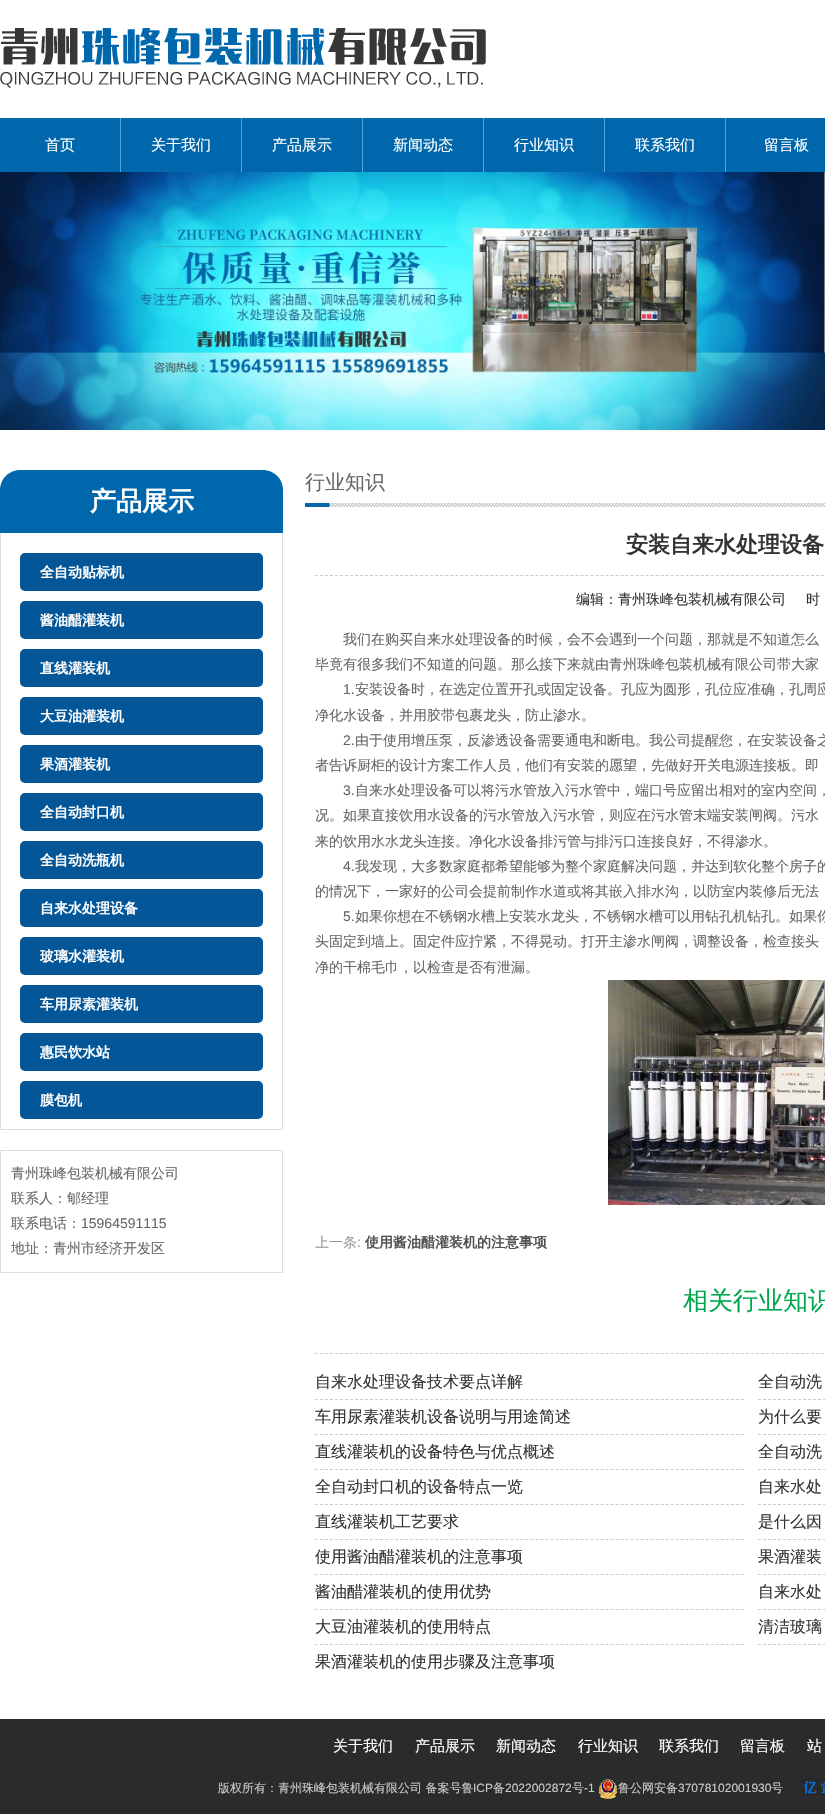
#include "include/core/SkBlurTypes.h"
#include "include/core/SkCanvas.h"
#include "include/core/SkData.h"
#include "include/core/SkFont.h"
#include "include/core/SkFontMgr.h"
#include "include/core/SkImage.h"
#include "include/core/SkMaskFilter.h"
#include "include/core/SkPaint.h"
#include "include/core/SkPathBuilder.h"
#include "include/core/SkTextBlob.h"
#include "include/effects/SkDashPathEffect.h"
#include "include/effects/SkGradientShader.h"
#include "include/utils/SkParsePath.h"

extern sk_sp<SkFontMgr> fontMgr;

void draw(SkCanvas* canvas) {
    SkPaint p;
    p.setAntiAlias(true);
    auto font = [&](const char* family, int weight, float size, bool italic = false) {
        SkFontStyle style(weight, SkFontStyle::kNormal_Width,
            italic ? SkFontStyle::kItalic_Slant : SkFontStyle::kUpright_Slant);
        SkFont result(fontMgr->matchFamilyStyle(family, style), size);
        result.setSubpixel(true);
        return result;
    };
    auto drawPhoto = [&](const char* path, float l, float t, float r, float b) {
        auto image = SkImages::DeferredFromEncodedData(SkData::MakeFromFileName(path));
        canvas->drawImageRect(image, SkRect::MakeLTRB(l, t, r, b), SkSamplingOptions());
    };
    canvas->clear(0xFFFFFFFF);
    drawPhoto("media/1.png", 0, 24, 486, 88);
    p.setColor(0xFF0067AC);
    canvas->drawRect(SkRect::MakeLTRB(0, 118, 825, 172), p);
    p.setColor(0xFF4DA6E1);
    canvas->drawRect(SkRect::MakeLTRB(120, 118, 121, 172), p);
    auto font1 = font("WenQuanYi Zen Hei", 500, 15);
    p.setColor(0xFFFFFFFF);
    canvas->drawString("首页", 45, 150, font1, p);
    p.setColor(0xFF4DA6E1);
    canvas->drawRect(SkRect::MakeLTRB(241, 118, 242, 172), p);
    p.setColor(0xFFFFFFFF);
    canvas->drawString("关于我们", 151, 150, font1, p);
    p.setColor(0xFF4DA6E1);
    canvas->drawRect(SkRect::MakeLTRB(362, 118, 363, 172), p);
    p.setColor(0xFFFFFFFF);
    canvas->drawString("产品展示", 272, 150, font1, p);
    p.setColor(0xFF4DA6E1);
    canvas->drawRect(SkRect::MakeLTRB(483, 118, 484, 172), p);
    p.setColor(0xFFFFFFFF);
    canvas->drawString("新闻动态", 393, 150, font1, p);
    p.setColor(0xFF4DA6E1);
    canvas->drawRect(SkRect::MakeLTRB(604, 118, 605, 172), p);
    p.setColor(0xFFFFFFFF);
    canvas->drawString("行业知识", 514, 150, font1, p);
    p.setColor(0xFF4DA6E1);
    canvas->drawRect(SkRect::MakeLTRB(725, 118, 726, 172), p);
    p.setColor(0xFFFFFFFF);
    canvas->drawString("联系我们", 635, 150, font1, p);
    canvas->drawString("留言板", 764, 150, font1, p);
    drawPhoto("media/2.png", 0, 172, 825, 430);
    p.setColor(0xFF0067AC);
    canvas->drawPath(SkPathBuilder().moveTo(20, 470).lineTo(263, 470).cubicTo(274, 470, 283, 479, 283, 490).lineTo(283, 533).lineTo(0, 533).lineTo(0, 490).cubicTo(0, 479, 9, 470, 20, 470).close().detach(), p);
    auto font2 = font("WenQuanYi Zen Hei", 700, 26);
    p.setColor(0xFFFFFFFF);
    canvas->drawString("产品展示", 90, 510, font2, p);
    {
        const struct { float l, t, r, b; SkColor color; } items[] = {
            {282, 533, 283, 1130, 0xFFDDDDDD},
            {0, 1129, 283, 1130, 0xFFDDDDDD},
            {0, 533, 1, 1130, 0xFFDDDDDD},
        };
        for (auto [l, t, r, b, color] : items) {
            p.setColor(color);
            canvas->drawRect(SkRect::MakeLTRB(l, t, r, b), p);
        }
    }
    p.setColor(0xFF035698);
    canvas->drawRoundRect(SkRect::MakeLTRB(20, 553, 263, 591), 5, 5, p);
    auto font3 = font("WenQuanYi Zen Hei", 700, 14);
    p.setColor(0xFFFFFFFF);
    canvas->drawString("全自动贴标机", 40, 577, font3, p);
    p.setColor(0xFF035698);
    canvas->drawRoundRect(SkRect::MakeLTRB(20, 601, 263, 639), 5, 5, p);
    p.setColor(0xFFFFFFFF);
    canvas->drawString("酱油醋灌装机", 40, 625, font3, p);
    p.setColor(0xFF035698);
    canvas->drawRoundRect(SkRect::MakeLTRB(20, 649, 263, 687), 5, 5, p);
    p.setColor(0xFFFFFFFF);
    canvas->drawString("直线灌装机", 40, 673, font3, p);
    p.setColor(0xFF035698);
    canvas->drawRoundRect(SkRect::MakeLTRB(20, 697, 263, 735), 5, 5, p);
    p.setColor(0xFFFFFFFF);
    canvas->drawString("大豆油灌装机", 40, 721, font3, p);
    p.setColor(0xFF035698);
    canvas->drawRoundRect(SkRect::MakeLTRB(20, 745, 263, 783), 5, 5, p);
    p.setColor(0xFFFFFFFF);
    canvas->drawString("果酒灌装机", 40, 769, font3, p);
    p.setColor(0xFF035698);
    canvas->drawRoundRect(SkRect::MakeLTRB(20, 793, 263, 831), 5, 5, p);
    p.setColor(0xFFFFFFFF);
    canvas->drawString("全自动封口机", 40, 817, font3, p);
    p.setColor(0xFF035698);
    canvas->drawRoundRect(SkRect::MakeLTRB(20, 841, 263, 879), 5, 5, p);
    p.setColor(0xFFFFFFFF);
    canvas->drawString("全自动洗瓶机", 40, 865, font3, p);
    p.setColor(0xFF035698);
    canvas->drawRoundRect(SkRect::MakeLTRB(20, 889, 263, 927), 5, 5, p);
    p.setColor(0xFFFFFFFF);
    canvas->drawString("自来水处理设备", 40, 913, font3, p);
    p.setColor(0xFF035698);
    canvas->drawRoundRect(SkRect::MakeLTRB(20, 937, 263, 975), 5, 5, p);
    p.setColor(0xFFFFFFFF);
    canvas->drawString("玻璃水灌装机", 40, 961, font3, p);
    p.setColor(0xFF035698);
    canvas->drawRoundRect(SkRect::MakeLTRB(20, 985, 263, 1023), 5, 5, p);
    p.setColor(0xFFFFFFFF);
    canvas->drawString("车用尿素灌装机", 40, 1009, font3, p);
    p.setColor(0xFF035698);
    canvas->drawRoundRect(SkRect::MakeLTRB(20, 1033, 263, 1071), 5, 5, p);
    p.setColor(0xFFFFFFFF);
    canvas->drawString("惠民饮水站", 40, 1057, font3, p);
    p.setColor(0xFF035698);
    canvas->drawRoundRect(SkRect::MakeLTRB(20, 1081, 263, 1119), 5, 5, p);
    p.setColor(0xFFFFFFFF);
    canvas->drawString("膜包机", 40, 1105, font3, p);
    p.setStyle(SkPaint::kStroke_Style);
    p.setStrokeWidth(1);
    p.setColor(0xFFDDDDDD);
    canvas->drawRect(SkRect::MakeLTRB(0.5f, 1150.5f, 282.5f, 1272.5f), p);
    auto font4 = font("WenQuanYi Zen Hei", 500, 14);
    p.setStyle(SkPaint::kFill_Style);
    p.setColor(0xFF666666);
    {
        const struct { const char* s; float x, y; } items[] = {
            {"青州珠峰包装机械有限公司", 11, 1178},
            {"联系人：郇经理", 11, 1203},
            {"联系电话：", 11, 1228},
        };
        for (auto [s, x, y] : items) {
            canvas->drawString(s, x, y, font4, p);
        }
    }
    auto font5 = font("Liberation Sans", 400, 14);
    canvas->drawString("15964591115", 81, 1228, font5, p);
    canvas->drawString("地址：青州市经济开发区", 11, 1253, font4, p);
    auto font6 = font("WenQuanYi Zen Hei", 500, 20);
    canvas->drawString("行业知识", 305, 489, font6, p);
    drawPhoto("media/3.png", 305, 503, 825, 507);
    p.setStyle(SkPaint::kStroke_Style);
    p.setColor(0xFFCCCCCC);
    p.setPathEffect(SkDashPathEffect::Make({{3, 2.01f}}, 0));
    canvas->drawPath(SkPathBuilder().moveTo(315, 575.5f).lineTo(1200, 575.5f).detach(), p);
    p.setPathEffect(nullptr);
    auto font7 = font("WenQuanYi Zen Hei", 700, 22);
    p.setStyle(SkPaint::kFill_Style);
    p.setColor(0xFF333333);
    canvas->drawString("安装自来水处理设备", 626, 552, font7, p);
    canvas->drawString("编辑：青州珠峰包装机械有限公司", 576, 604, font4, p);
    canvas->drawString("时", 806, 604, font4, p);
    p.setColor(0xFF666666);
    canvas->drawString("我们在购买自来水处理设备的时候，会不会遇到一个问题，那就是不知道怎么", 343, 644, font4, p);
    canvas->drawString("毕竟有很多我们不知道的问题。那么接下来就由青州珠峰包装机械有限公司带大家", 315, 669, font4, p);
    canvas->drawString("1.", 343, 694, font5, p);
    canvas->drawString("安装设备时，在选定位置开孔或固定设备。孔应为圆形，孔位应准确，孔周应", 355, 694, font4, p);
    canvas->drawString("净化水设备，并用胶带包裹龙头，防止渗水。", 315, 720, font4, p);
    canvas->drawString("2.", 343, 745, font5, p);
    canvas->drawString("由于使用增压泵，反渗透设备需要通电和断电。我公司提醒您，在安装设备之", 355, 745, font4, p);
    canvas->drawString("者告诉厨柜的设计方案工作人员，他们有安装的愿望，先做好开关电源连接板。即", 315, 770, font4, p);
    canvas->drawString("3.", 343, 795, font5, p);
    {
        const struct { const char* s; float x, y; } items[] = {
            {"自来水处理设备可以将污水管放入污水管中，端口号应留出相对的室内空间，", 355, 795},
            {"况。如果直接饮用水设备的污水管放入污水管，则应在污水管末端安装闸阀。污水", 315, 820},
            {"来的饮用水水龙头连接。净化水设备排污管与排污口连接良好，不得渗水。", 315, 846},
        };
        for (auto [s, x, y] : items) {
            canvas->drawString(s, x, y, font4, p);
        }
    }
    canvas->drawString("4.", 343, 871, font5, p);
    canvas->drawString("我发现，大多数家庭都希望能够为整个家庭解决问题，并达到软化整个房子的", 355, 871, font4, p);
    canvas->drawString("的情况下，一家好的公司会提前制作水道或将其嵌入排水沟，以防室内装修后无法", 315, 896, font4, p);
    canvas->drawString("5.", 343, 921, font5, p);
    {
        const struct { const char* s; float x, y; } items[] = {
            {"如果你想在不锈钢水槽上安装水龙头，不锈钢水槽可以用钻孔机钻孔。如果你", 355, 921},
            {"头固定到墙上。固定件应拧紧，不得晃动。打开主渗水闸阀，调整设备，检查接头", 315, 946},
            {"净的干棉毛巾，以检查是否有泄漏。", 315, 972},
        };
        for (auto [s, x, y] : items) {
            canvas->drawString(s, x, y, font4, p);
        }
    }
    drawPhoto("media/4.png", 608, 980, 825, 1205);
    p.setColor(0xFF999999);
    canvas->drawString("上一条", 315, 1247, font4, p);
    canvas->drawString(":", 357, 1247, font5, p);
    p.setColor(0xFF505050);
    canvas->drawString("使用酱油醋灌装机的注意事项", 365, 1247, font3, p);
    p.setStyle(SkPaint::kStroke_Style);
    p.setColor(0xFFCCCCCC);
    p.setPathEffect(SkDashPathEffect::Make({{3, 2.01f}}, 0));
    canvas->drawPath(SkPathBuilder().moveTo(315, 1353.5f).lineTo(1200, 1353.5f).detach(), p);
    p.setPathEffect(nullptr);
    auto font8 = font("WenQuanYi Zen Hei", 500, 25);
    p.setStyle(SkPaint::kFill_Style);
    p.setColor(0xFF00A74B);
    canvas->drawString("相关行业知识", 683, 1309, font8, p);
    p.setStyle(SkPaint::kStroke_Style);
    p.setColor(0xFFCCCCCC);
    p.setPathEffect(SkDashPathEffect::Make({{3, 2.01f}}, 0));
    canvas->drawPath(SkPathBuilder().moveTo(315, 1399.5f).lineTo(744, 1399.5f).detach(), p);
    p.setPathEffect(nullptr);
    auto font9 = font("WenQuanYi Zen Hei", 500, 16);
    p.setStyle(SkPaint::kFill_Style);
    p.setColor(0xFF333333);
    canvas->drawString("自来水处理设备技术要点详解", 315, 1387, font9, p);
    p.setStyle(SkPaint::kStroke_Style);
    p.setColor(0xFFCCCCCC);
    p.setPathEffect(SkDashPathEffect::Make({{3, 2.01f}}, 0));
    canvas->drawPath(SkPathBuilder().moveTo(758, 1399.5f).lineTo(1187, 1399.5f).detach(), p);
    p.setPathEffect(nullptr);
    p.setStyle(SkPaint::kFill_Style);
    p.setColor(0xFF333333);
    canvas->drawString("全自动洗", 758, 1387, font9, p);
    p.setStyle(SkPaint::kStroke_Style);
    p.setColor(0xFFCCCCCC);
    p.setPathEffect(SkDashPathEffect::Make({{3, 2.01f}}, 0));
    canvas->drawPath(SkPathBuilder().moveTo(315, 1434.5f).lineTo(744, 1434.5f).detach(), p);
    p.setPathEffect(nullptr);
    p.setStyle(SkPaint::kFill_Style);
    p.setColor(0xFF333333);
    canvas->drawString("车用尿素灌装机设备说明与用途简述", 315, 1422, font9, p);
    p.setStyle(SkPaint::kStroke_Style);
    p.setColor(0xFFCCCCCC);
    p.setPathEffect(SkDashPathEffect::Make({{3, 2.01f}}, 0));
    canvas->drawPath(SkPathBuilder().moveTo(758, 1434.5f).lineTo(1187, 1434.5f).detach(), p);
    p.setPathEffect(nullptr);
    p.setStyle(SkPaint::kFill_Style);
    p.setColor(0xFF333333);
    canvas->drawString("为什么要", 758, 1422, font9, p);
    p.setStyle(SkPaint::kStroke_Style);
    p.setColor(0xFFCCCCCC);
    p.setPathEffect(SkDashPathEffect::Make({{3, 2.01f}}, 0));
    canvas->drawPath(SkPathBuilder().moveTo(315, 1469.5f).lineTo(744, 1469.5f).detach(), p);
    p.setPathEffect(nullptr);
    p.setStyle(SkPaint::kFill_Style);
    p.setColor(0xFF333333);
    canvas->drawString("直线灌装机的设备特色与优点概述", 315, 1457, font9, p);
    p.setStyle(SkPaint::kStroke_Style);
    p.setColor(0xFFCCCCCC);
    p.setPathEffect(SkDashPathEffect::Make({{3, 2.01f}}, 0));
    canvas->drawPath(SkPathBuilder().moveTo(758, 1469.5f).lineTo(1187, 1469.5f).detach(), p);
    p.setPathEffect(nullptr);
    p.setStyle(SkPaint::kFill_Style);
    p.setColor(0xFF333333);
    canvas->drawString("全自动洗", 758, 1457, font9, p);
    p.setStyle(SkPaint::kStroke_Style);
    p.setColor(0xFFCCCCCC);
    p.setPathEffect(SkDashPathEffect::Make({{3, 2.01f}}, 0));
    canvas->drawPath(SkPathBuilder().moveTo(315, 1504.5f).lineTo(744, 1504.5f).detach(), p);
    p.setPathEffect(nullptr);
    p.setStyle(SkPaint::kFill_Style);
    p.setColor(0xFF333333);
    canvas->drawString("全自动封口机的设备特点一览", 315, 1492, font9, p);
    p.setStyle(SkPaint::kStroke_Style);
    p.setColor(0xFFCCCCCC);
    p.setPathEffect(SkDashPathEffect::Make({{3, 2.01f}}, 0));
    canvas->drawPath(SkPathBuilder().moveTo(758, 1504.5f).lineTo(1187, 1504.5f).detach(), p);
    p.setPathEffect(nullptr);
    p.setStyle(SkPaint::kFill_Style);
    p.setColor(0xFF333333);
    canvas->drawString("自来水处", 758, 1492, font9, p);
    p.setStyle(SkPaint::kStroke_Style);
    p.setColor(0xFFCCCCCC);
    p.setPathEffect(SkDashPathEffect::Make({{3, 2.01f}}, 0));
    canvas->drawPath(SkPathBuilder().moveTo(315, 1539.5f).lineTo(744, 1539.5f).detach(), p);
    p.setPathEffect(nullptr);
    p.setStyle(SkPaint::kFill_Style);
    p.setColor(0xFF333333);
    canvas->drawString("直线灌装机工艺要求", 315, 1527, font9, p);
    p.setStyle(SkPaint::kStroke_Style);
    p.setColor(0xFFCCCCCC);
    p.setPathEffect(SkDashPathEffect::Make({{3, 2.01f}}, 0));
    canvas->drawPath(SkPathBuilder().moveTo(758, 1539.5f).lineTo(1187, 1539.5f).detach(), p);
    p.setPathEffect(nullptr);
    p.setStyle(SkPaint::kFill_Style);
    p.setColor(0xFF333333);
    canvas->drawString("是什么因", 758, 1527, font9, p);
    p.setStyle(SkPaint::kStroke_Style);
    p.setColor(0xFFCCCCCC);
    p.setPathEffect(SkDashPathEffect::Make({{3, 2.01f}}, 0));
    canvas->drawPath(SkPathBuilder().moveTo(315, 1574.5f).lineTo(744, 1574.5f).detach(), p);
    p.setPathEffect(nullptr);
    p.setStyle(SkPaint::kFill_Style);
    p.setColor(0xFF333333);
    canvas->drawString("使用酱油醋灌装机的注意事项", 315, 1562, font9, p);
    p.setStyle(SkPaint::kStroke_Style);
    p.setColor(0xFFCCCCCC);
    p.setPathEffect(SkDashPathEffect::Make({{3, 2.01f}}, 0));
    canvas->drawPath(SkPathBuilder().moveTo(758, 1574.5f).lineTo(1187, 1574.5f).detach(), p);
    p.setPathEffect(nullptr);
    p.setStyle(SkPaint::kFill_Style);
    p.setColor(0xFF333333);
    canvas->drawString("果酒灌装", 758, 1562, font9, p);
    p.setStyle(SkPaint::kStroke_Style);
    p.setColor(0xFFCCCCCC);
    p.setPathEffect(SkDashPathEffect::Make({{3, 2.01f}}, 0));
    canvas->drawPath(SkPathBuilder().moveTo(315, 1609.5f).lineTo(744, 1609.5f).detach(), p);
    p.setPathEffect(nullptr);
    p.setStyle(SkPaint::kFill_Style);
    p.setColor(0xFF333333);
    canvas->drawString("酱油醋灌装机的使用优势", 315, 1597, font9, p);
    p.setStyle(SkPaint::kStroke_Style);
    p.setColor(0xFFCCCCCC);
    p.setPathEffect(SkDashPathEffect::Make({{3, 2.01f}}, 0));
    canvas->drawPath(SkPathBuilder().moveTo(758, 1609.5f).lineTo(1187, 1609.5f).detach(), p);
    p.setPathEffect(nullptr);
    p.setStyle(SkPaint::kFill_Style);
    p.setColor(0xFF333333);
    canvas->drawString("自来水处", 758, 1597, font9, p);
    p.setStyle(SkPaint::kStroke_Style);
    p.setColor(0xFFCCCCCC);
    p.setPathEffect(SkDashPathEffect::Make({{3, 2.01f}}, 0));
    canvas->drawPath(SkPathBuilder().moveTo(315, 1644.5f).lineTo(744, 1644.5f).detach(), p);
    p.setPathEffect(nullptr);
    p.setStyle(SkPaint::kFill_Style);
    p.setColor(0xFF333333);
    canvas->drawString("大豆油灌装机的使用特点", 315, 1632, font9, p);
    p.setStyle(SkPaint::kStroke_Style);
    p.setColor(0xFFCCCCCC);
    p.setPathEffect(SkDashPathEffect::Make({{3, 2.01f}}, 0));
    canvas->drawPath(SkPathBuilder().moveTo(758, 1644.5f).lineTo(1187, 1644.5f).detach(), p);
    p.setPathEffect(nullptr);
    p.setStyle(SkPaint::kFill_Style);
    p.setColor(0xFF333333);
    canvas->drawString("清洁玻璃", 758, 1632, font9, p);
    canvas->drawString("果酒灌装机的使用步骤及注意事项", 315, 1667, font9, p);
    p.setColor(0xFF2A2B2B);
    canvas->drawRect(SkRect::MakeLTRB(0, 1719, 825, 1814), p);
    p.setColor(0xFFFFFFFF);
    {
        const struct { const char* s; float x, y; } items[] = {
            {"关于我们", 333, 1751},
            {"产品展示", 415, 1751},
            {"新闻动态", 496, 1751},
            {"行业知识", 578, 1751},
            {"联系我们", 659, 1751},
            {"留言板", 740, 1751},
            {"站", 807, 1751},
        };
        for (auto [s, x, y] : items) {
            canvas->drawString(s, x, y, font1, p);
        }
    }
    auto font10 = font("WenQuanYi Zen Hei", 500, 12);
    p.setColor(0xFFCCCCCC);
    canvas->drawString("版权所有：青州珠峰包装机械有限公司 备案号鲁", 218, 1792, font10, p);
    auto font11 = font("Liberation Sans", 400, 12);
    canvas->drawString("ICP", 473, 1792, font11, p);
    canvas->drawString("备", 493, 1792, font10, p);
    canvas->drawString("2022002872", 505, 1792, font11, p);
    canvas->drawString("号", 572, 1792, font10, p);
    canvas->drawString("-1", 584, 1792, font11, p);
    drawPhoto("media/5.png", 599, 1779, 617, 1799);
    canvas->drawString("鲁公网安备", 618, 1792, font10, p);
    canvas->drawString("37078102001930", 678, 1792, font11, p);
    canvas->drawString("号", 771, 1792, font10, p);
    drawPhoto("media/6.png", 803, 1779, 825, 1795);
}
